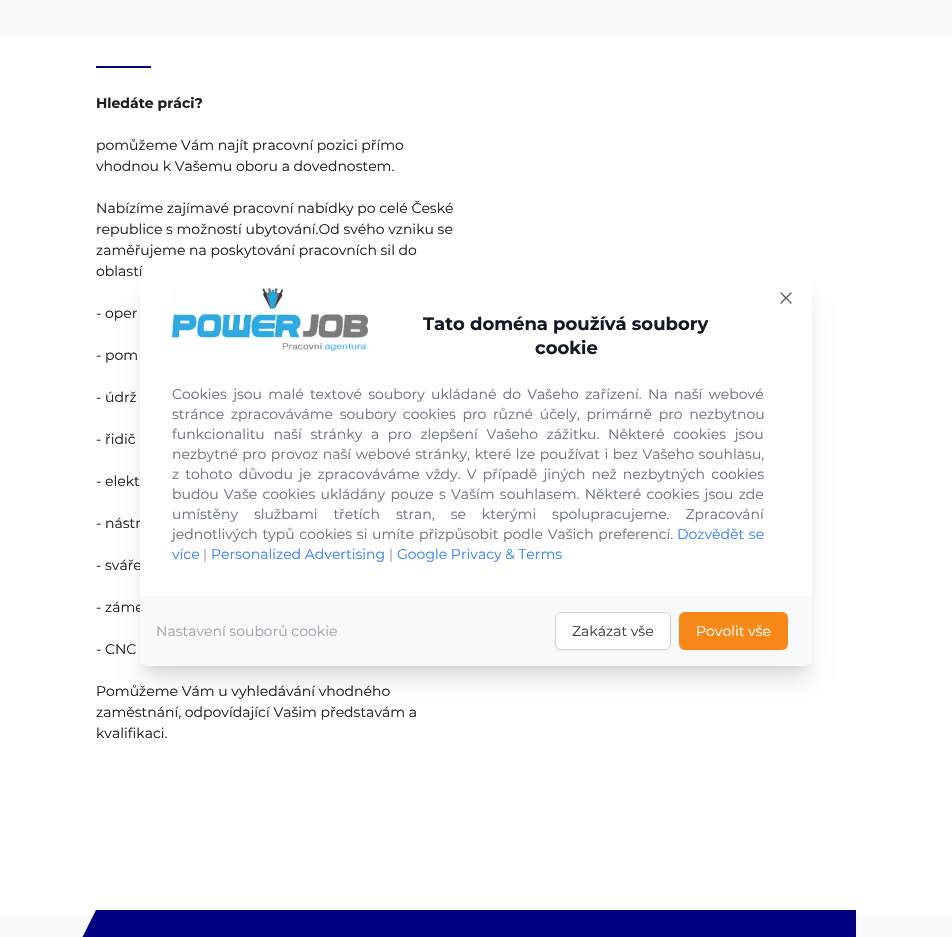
#include "include/core/SkBlurTypes.h"
#include "include/core/SkCanvas.h"
#include "include/core/SkData.h"
#include "include/core/SkFont.h"
#include "include/core/SkFontMgr.h"
#include "include/core/SkImage.h"
#include "include/core/SkMaskFilter.h"
#include "include/core/SkPaint.h"
#include "include/core/SkPathBuilder.h"
#include "include/core/SkTextBlob.h"
#include "include/effects/SkDashPathEffect.h"
#include "include/effects/SkGradientShader.h"
#include "include/utils/SkParsePath.h"

extern sk_sp<SkFontMgr> fontMgr;

void draw(SkCanvas* canvas) {
    SkPaint p;
    p.setAntiAlias(true);
    auto font = [&](const char* family, int weight, float size, bool italic = false) {
        SkFontStyle style(weight, SkFontStyle::kNormal_Width,
            italic ? SkFontStyle::kItalic_Slant : SkFontStyle::kUpright_Slant);
        SkFont result(fontMgr->matchFamilyStyle(family, style), size);
        result.setSubpixel(true);
        return result;
    };
    auto drawTracked = [&](const char* s, float x, float y, const SkFont& font, const SkPaint& ink, float letter, float word) {
        std::vector<SkGlyphID> glyphs(font.countText(s, strlen(s), SkTextEncoding::kUTF8));
        std::vector<float> xs(glyphs.size());
        font.textToGlyphs(s, strlen(s), SkTextEncoding::kUTF8, glyphs);
        font.getXPos(glyphs, xs, x);
        float extra = 0;
        for (size_t i = 0; i < glyphs.size(); i++) {
            xs[i] += extra;
            extra += letter + word * (glyphs[i] == font.unicharToGlyph(' '));
        }
        canvas->drawTextBlob(SkTextBlob::MakeFromPosHGlyphs(glyphs, xs, y, font), 0, 0, ink);
    };
    auto drawPhoto = [&](const char* path, float l, float t, float r, float b) {
        auto image = SkImages::DeferredFromEncodedData(SkData::MakeFromFileName(path));
        canvas->drawImageRect(image, SkRect::MakeLTRB(l, t, r, b), SkSamplingOptions());
    };
    canvas->clear(0xFFFAFAFA);
    p.setColor(0xFFFFFFFF);
    canvas->drawRect(SkRect::MakeLTRB(0, 38, 952, 914), p);
    p.setColor(0xFF000080);
    canvas->drawRect(SkRect::MakeLTRB(96, 66, 151, 68), p);
    auto font1 = font("Montserrat", 700, 14);
    p.setColor(0xFF1F1F1F);
    canvas->drawString("Hledáte práci?", 96, 108, font1, p);
    auto font2 = font("Montserrat", 400, 14);
    {
        const struct { const char* s; float x, y; } items[] = {
            {"pomůžeme Vám najít pracovní pozici přímo", 96, 150},
            {"vhodnou k Vašemu oboru a dovednostem.", 96, 171},
            {"Nabízíme zajímavé pracovní nabídky po celé České", 96, 213},
            {"republice s možností ubytování.Od svého vzniku se", 96, 234},
            {"zaměřujeme na poskytování pracovních sil do", 96, 255},
            {"oblastí", 96, 276},
            {"- oper", 96, 318},
            {"- pom", 96, 360},
            {"- údrž", 96, 402},
            {"- řidič", 96, 444},
            {"- elekt", 96, 486},
            {"- nástr", 96, 528},
            {"- sváře", 96, 570},
            {"- záme", 96, 612},
            {"- CNC", 96, 654},
            {"Pomůžeme Vám u vyhledávání vhodného", 96, 696},
            {"zaměstnání, odpovídající Vašim představám a", 96, 717},
            {"kvalifikaci.", 96, 738},
        };
        for (auto [s, x, y] : items) {
            canvas->drawString(s, x, y, font2, p);
        }
    }
    p.setColor(0xFF000080);
    canvas->drawRect(SkRect::MakeLTRB(96, 910, 856, 937), p);
    canvas->drawPath(SkPathBuilder().moveTo(96, 910).lineTo(96, 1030).lineTo(36, 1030).close().detach(), p);
    p.setColor(0x1A000000);
    p.setMaskFilter(SkMaskFilter::MakeBlur(kNormal_SkBlurStyle, 5));
    canvas->drawRoundRect(SkRect::MakeLTRB(146, 286, 806, 668), 2, 2, p);
    p.setMaskFilter(nullptr);
    p.setMaskFilter(SkMaskFilter::MakeBlur(kNormal_SkBlurStyle, 12.5f));
    canvas->drawRoundRect(SkRect::MakeLTRB(145, 297, 807, 681), 3, 3, p);
    p.setMaskFilter(nullptr);
    p.setColor(0xFFFFFFFF);
    canvas->drawRoundRect(SkRect::MakeLTRB(140, 272, 812, 666), 8, 8, p);
    p.setStyle(SkPaint::kStroke_Style);
    p.setStrokeWidth(1.2f);
    p.setStrokeCap(SkPaint::kRound_Cap);
    p.setStrokeJoin(SkPaint::kRound_Join);
    p.setColor(0xFF4B5563);
    canvas->drawPath(SkPathBuilder().moveTo(781, 303).lineTo(791, 293).moveTo(781, 293).lineTo(791, 303).detach(), p);
    drawPhoto("media/1.png", 172, 288, 369, 351);
    auto font3 = font("Montserrat", 700, 18);
    p.setStyle(SkPaint::kFill_Style);
    p.setColor(0xFF111827);
    canvas->drawString("Tato doména používá soubory", 423, 330, font3, p);
    canvas->drawString("cookie", 535, 354, font3, p);
    p.setColor(0xFF6B7280);
    drawTracked("Cookies jsou malé textové soubory ukládané do Vašeho zařízení. Na naší webové", 172, 399, font2, p, 0, 2.6f);
    drawTracked("stránce zpracováváme soubory cookies pro různé účely, primárně pro nezbytnou", 172, 419, font2, p, 0, 3);
    drawTracked("funkcionalitu naší stránky a pro zlepšení Vašeho zážitku. Některé cookies jsou", 172, 439, font2, p, 0, 5);
    drawTracked("nezbytné pro provoz naší webové stránky, které lze používat i bez Vašeho souhlasu,", 172, 459, font2, p, 0, 0.9f);
    drawTracked("z tohoto důvodu je zpracováváme vždy. V případě jiných než nezbytných cookies", 172, 479, font2, p, 0, 2.5f);
    drawTracked("budou Vaše cookies ukládány pouze s Vaším souhlasem. Některé cookies jsou zde", 172, 499, font2, p, 0, 1.6f);
    drawTracked("umístěny službami třetích stran, se kterými spolupracujeme. Zpracování", 172, 519, font2, p, 0, 12.25f);
    drawTracked("jednotlivých typů cookies si umíte přizpůsobit podle Vašich preferencí.", 172, 539, font2, p, 0, 1);
    p.setColor(0xFF3B82F6);
    drawTracked("Dozvědět se", 677, 539, font2, p, 0, 1);
    canvas->drawString("více", 172, 559, font2, p);
    p.setColor(0xFF9CA3AF);
    canvas->drawString("|", 203, 559, font2, p);
    p.setColor(0xFF3B82F6);
    canvas->drawString("Personalized Advertising", 211, 559, font2, p);
    p.setColor(0xFF9CA3AF);
    canvas->drawString("|", 389, 559, font2, p);
    p.setColor(0xFF3B82F6);
    canvas->drawString("Google Privacy & Terms", 397, 559, font2, p);
    p.setColor(0xFFF9FAFB);
    canvas->drawPath(SkPathBuilder().moveTo(140, 596).lineTo(812, 596).lineTo(812, 658).cubicTo(812, 662.5f, 808.5f, 666, 804, 666).lineTo(148, 666).cubicTo(143.5f, 666, 140, 662.5f, 140, 658).close().detach(), p);
    p.setColor(0xFF9CA3AF);
    canvas->drawString("Nastavení souborů cookie", 156, 636, font2, p);
    p.setColor(0x0D000000);
    p.setMaskFilter(SkMaskFilter::MakeBlur(kNormal_SkBlurStyle, 1));
    canvas->drawRoundRect(SkRect::MakeLTRB(555, 613, 671, 651), 6, 6, p);
    p.setMaskFilter(nullptr);
    p.setColor(0xFFFFFFFF);
    canvas->drawRoundRect(SkRect::MakeLTRB(555.5f, 612.5f, 670.5f, 649.5f), 5.5f, 5.5f, p);
    p.setStyle(SkPaint::kStroke_Style);
    p.setStrokeWidth(1);
    p.setStrokeCap(SkPaint::kButt_Cap);
    p.setStrokeJoin(SkPaint::kMiter_Join);
    p.setColor(0xFFD1D5DB);
    canvas->drawRoundRect(SkRect::MakeLTRB(555.5f, 612.5f, 670.5f, 649.5f), 5.5f, 5.5f, p);
    p.setStyle(SkPaint::kFill_Style);
    p.setColor(0xFF374151);
    canvas->drawString("Zakázat vše", 572, 636, font2, p);
    p.setColor(0x0D000000);
    p.setMaskFilter(SkMaskFilter::MakeBlur(kNormal_SkBlurStyle, 1));
    canvas->drawRoundRect(SkRect::MakeLTRB(679, 613, 788, 651), 6, 6, p);
    p.setMaskFilter(nullptr);
    p.setColor(0xFFF78717);
    canvas->drawRoundRect(SkRect::MakeLTRB(679, 612, 788, 650), 6, 6, p);
    p.setColor(0xFFFFFFFF);
    canvas->drawString("Povolit vše", 696, 636, font2, p);
}
